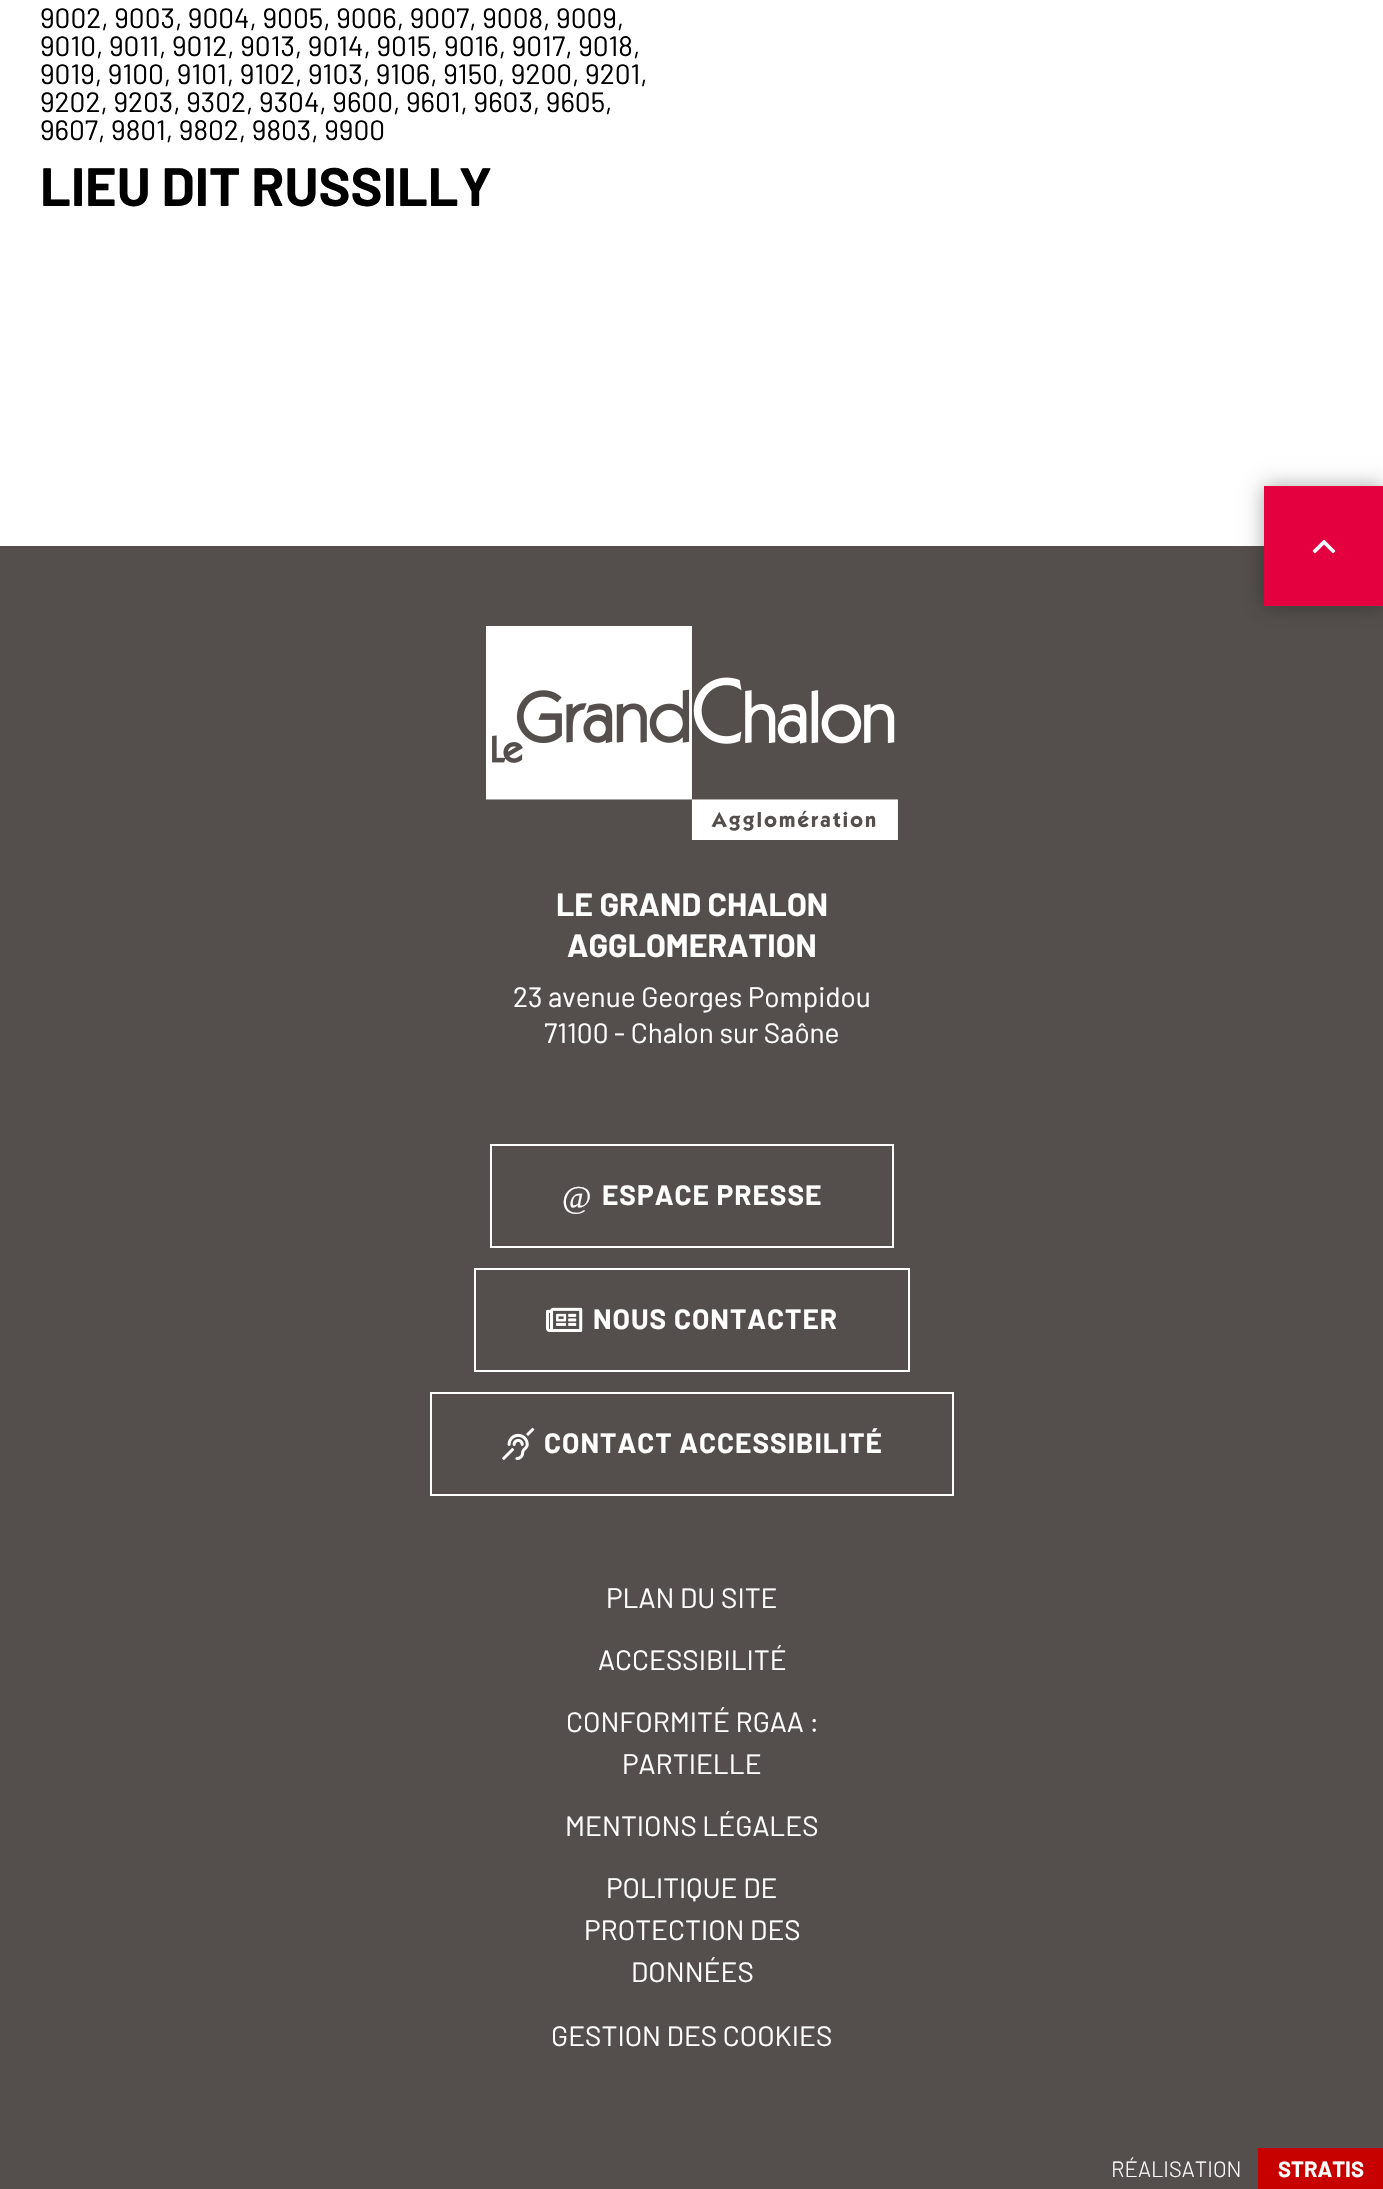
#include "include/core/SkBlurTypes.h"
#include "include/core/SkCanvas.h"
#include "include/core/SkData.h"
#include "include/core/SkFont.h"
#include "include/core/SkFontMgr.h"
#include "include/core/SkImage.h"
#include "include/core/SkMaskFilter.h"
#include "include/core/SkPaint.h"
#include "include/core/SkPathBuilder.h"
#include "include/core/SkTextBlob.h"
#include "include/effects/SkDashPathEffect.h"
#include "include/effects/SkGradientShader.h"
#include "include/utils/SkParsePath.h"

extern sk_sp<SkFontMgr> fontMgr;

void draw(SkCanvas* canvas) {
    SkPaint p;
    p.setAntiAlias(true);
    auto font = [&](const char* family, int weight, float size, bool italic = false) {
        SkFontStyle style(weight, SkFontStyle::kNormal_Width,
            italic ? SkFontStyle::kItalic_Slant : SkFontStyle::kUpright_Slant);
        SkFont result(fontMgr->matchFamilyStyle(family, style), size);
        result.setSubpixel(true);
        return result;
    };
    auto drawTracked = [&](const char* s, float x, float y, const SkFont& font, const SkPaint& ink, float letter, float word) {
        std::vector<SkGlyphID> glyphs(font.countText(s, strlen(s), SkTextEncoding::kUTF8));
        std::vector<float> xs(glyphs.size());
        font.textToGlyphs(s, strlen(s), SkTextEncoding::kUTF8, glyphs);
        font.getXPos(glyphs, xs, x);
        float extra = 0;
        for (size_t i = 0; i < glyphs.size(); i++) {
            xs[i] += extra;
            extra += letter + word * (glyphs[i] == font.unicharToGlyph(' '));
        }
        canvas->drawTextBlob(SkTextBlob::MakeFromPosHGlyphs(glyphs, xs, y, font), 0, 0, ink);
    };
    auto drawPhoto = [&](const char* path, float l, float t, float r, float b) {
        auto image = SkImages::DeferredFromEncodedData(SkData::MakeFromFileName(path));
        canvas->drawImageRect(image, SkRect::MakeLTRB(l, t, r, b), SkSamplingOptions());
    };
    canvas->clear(0xFFFFFFFF);
    auto font1 = font("Barlow", 400, 28);
    p.setColor(0xFF000000);
    {
        const struct { const char* s; float x, y; } items[] = {
            {"9002, 9003, 9004, 9005, 9006, 9007, 9008, 9009,", 40, 28},
            {"9010, 9011, 9012, 9013, 9014, 9015, 9016, 9017, 9018,", 40, 56},
            {"9019, 9100, 9101, 9102, 9103, 9106, 9150, 9200, 9201,", 40, 84},
            {"9202, 9203, 9302, 9304, 9600, 9601, 9603, 9605,", 40, 112},
            {"9607, 9801, 9802, 9803, 9900", 40, 140},
        };
        for (auto [s, x, y] : items) {
            canvas->drawString(s, x, y, font1, p);
        }
    }
    auto font2 = font("Barlow", 700, 54);
    canvas->drawString("LIEU DIT RUSSILLY", 40, 206, font2, p);
    p.setColor(0xFF544F4C);
    canvas->drawRect(SkRect::MakeLTRB(0, 546, 1383, 2189), p);
    p.setColor(0x57000000);
    p.setMaskFilter(SkMaskFilter::MakeBlur(kNormal_SkBlurStyle, 10));
    canvas->drawRect(SkRect::MakeLTRB(1264, 486, 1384, 606), p);
    p.setMaskFilter(nullptr);
    p.setColor(0xFFE4003F);
    canvas->drawRect(SkRect::MakeLTRB(1264, 486, 1383, 606), p);
    drawPhoto("media/1.png", 1312, 539, 1336, 554);
    drawPhoto("media/2.png", 486, 626, 898, 840);
    auto font3 = font("Barlow", 700, 32);
    p.setColor(0xFFFFFFFF);
    canvas->drawString("LE GRAND CHALON", 556, 916, font3, p);
    canvas->drawString("AGGLOMERATION", 567, 957, font3, p);
    canvas->drawString("23 avenue Georges Pompidou", 513, 1007, font1, p);
    canvas->drawString("71100 - Chalon sur Saône", 544, 1043, font1, p);
    p.setStyle(SkPaint::kStroke_Style);
    p.setStrokeWidth(2);
    canvas->drawRect(SkRect::MakeLTRB(491, 1145, 893, 1247), p);
    auto font4 = font("Liberation Serif", 400, 32);
    p.setStyle(SkPaint::kFill_Style);
    canvas->drawString("@", 562, 1208, font4, p);
    auto font5 = font("Barlow", 700, 28);
    drawTracked("ESPACE PRESSE", 602, 1205, font5, p, 1, 0);
    p.setStyle(SkPaint::kStroke_Style);
    canvas->drawRect(SkRect::MakeLTRB(475, 1269, 909, 1371), p);
    drawPhoto("media/3.png", 546, 1307, 583, 1332);
    p.setStyle(SkPaint::kFill_Style);
    drawTracked("NOUS CONTACTER", 593, 1329, font5, p, 1, 0);
    p.setStyle(SkPaint::kStroke_Style);
    canvas->drawRect(SkRect::MakeLTRB(431, 1393, 953, 1495), p);
    drawPhoto("media/4.png", 502, 1427, 535, 1460);
    p.setStyle(SkPaint::kFill_Style);
    drawTracked("CONTACT ACCESSIBILITÉ", 544, 1453, font5, p, 1, 0);
    {
        const struct { const char* s; float x, y; } items[] = {
            {"PLAN DU SITE", 606, 1608},
            {"ACCESSIBILITÉ", 598, 1670},
            {"CONFORMITÉ RGAA :", 566, 1732},
            {"PARTIELLE", 622, 1774},
            {"MENTIONS LÉGALES", 565, 1836},
            {"POLITIQUE DE", 606, 1898},
            {"PROTECTION DES", 584, 1940},
            {"DONNÉES", 631, 1982},
            {"GESTION DES COOKIES", 551, 2046},
        };
        for (auto [s, x, y] : items) {
            canvas->drawString(s, x, y, font1, p);
        }
    }
    auto font6 = font("Barlow", 300, 22);
    canvas->drawString("RÉALISATION", 1111, 2177, font6, p);
    p.setColor(0xFFC70000);
    canvas->drawRect(SkRect::MakeLTRB(1258, 2148, 1383, 2189), p);
    auto font7 = font("Barlow", 700, 22);
    p.setColor(0xFFFFFFFF);
    canvas->drawString("STRATIS", 1278, 2177, font7, p);
}
